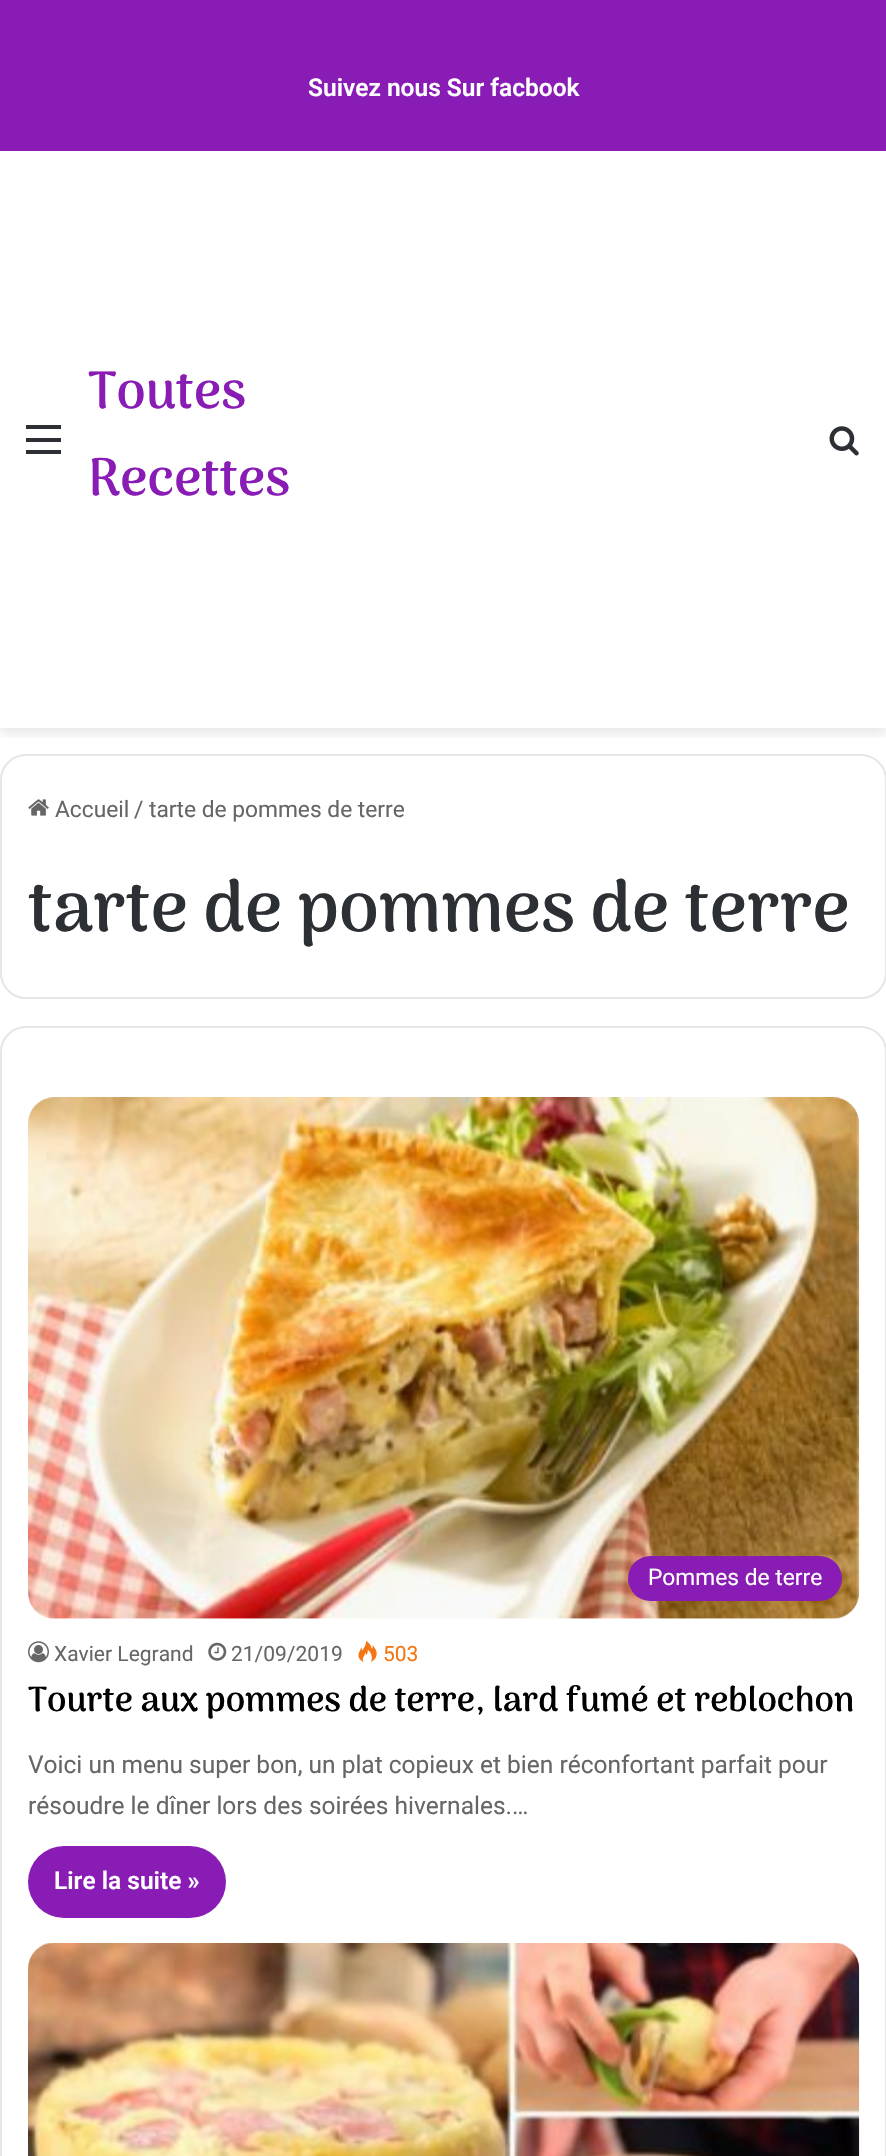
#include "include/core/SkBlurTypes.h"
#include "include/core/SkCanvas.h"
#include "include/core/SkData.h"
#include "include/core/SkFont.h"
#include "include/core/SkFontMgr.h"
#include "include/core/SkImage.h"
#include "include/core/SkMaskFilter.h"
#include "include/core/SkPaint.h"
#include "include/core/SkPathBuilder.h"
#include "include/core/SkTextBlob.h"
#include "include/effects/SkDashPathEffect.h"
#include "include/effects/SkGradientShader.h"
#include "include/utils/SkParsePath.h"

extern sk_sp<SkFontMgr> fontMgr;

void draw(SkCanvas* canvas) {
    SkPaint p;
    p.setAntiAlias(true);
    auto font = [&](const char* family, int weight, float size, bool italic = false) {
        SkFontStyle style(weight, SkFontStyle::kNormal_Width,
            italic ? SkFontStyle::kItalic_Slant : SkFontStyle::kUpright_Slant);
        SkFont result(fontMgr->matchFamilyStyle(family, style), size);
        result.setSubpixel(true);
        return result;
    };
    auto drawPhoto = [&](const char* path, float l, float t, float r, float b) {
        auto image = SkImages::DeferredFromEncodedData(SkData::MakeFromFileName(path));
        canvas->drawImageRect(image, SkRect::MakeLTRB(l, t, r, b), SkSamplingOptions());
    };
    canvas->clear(0xFF891CB5);
    auto font1 = font("Roboto", 600, 24.5f);
    p.setColor(0xFFFFFFFF);
    canvas->drawString("Suivez nous Sur facbook", 308, 96, font1, p);
    canvas->drawRect(SkRect::MakeLTRB(0, 151, 886, 2156), p);
    canvas->save();
    canvas->clipRect(SkRect::MakeLTRB(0, 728, 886, 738));
    p.setColor(0x1A000000);
    p.setMaskFilter(SkMaskFilter::MakeBlur(kNormal_SkBlurStyle, 6));
    canvas->drawRect(SkRect::MakeLTRB(0, 156, 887, 733), p);
    p.setMaskFilter(nullptr);
    canvas->restore();
    {
        const struct { float l, t, r, b; SkColor color; } items[] = {
            {26, 438, 61, 442, 0xFF2C2F34},
            {26, 425, 61, 429, 0xFF2C2F34},
            {26, 450, 61, 454, 0xFF2C2F34},
        };
        for (auto [l, t, r, b, color] : items) {
            p.setColor(color);
            canvas->drawRect(SkRect::MakeLTRB(l, t, r, b), p);
        }
    }
    auto font2 = font("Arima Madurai", 700, 52.5f);
    p.setColor(0xFF891CB5);
    canvas->drawString("Toutes", 88, 408, font2, p);
    canvas->drawString("Recettes", 88, 495, font2, p);
    drawPhoto("media/1.png", 829, 426, 859, 456);
    p.setStyle(SkPaint::kStroke_Style);
    p.setStrokeWidth(2);
    p.setColor(0xFFE6E6E6);
    canvas->drawRoundRect(SkRect::MakeLTRB(1, 755, 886, 998), 25, 25, p);
    drawPhoto("media/2.png", 28, 799, 49, 816);
    auto font3 = font("Roboto", 400, 22.75f);
    p.setStyle(SkPaint::kFill_Style);
    p.setColor(0xFF666666);
    {
        const struct { const char* s; float x, y; } items[] = {
            {"Accueil", 55, 817},
            {"/", 134, 817},
            {"tarte de pommes de terre", 149, 817},
        };
        for (auto [s, x, y] : items) {
            canvas->drawString(s, x, y, font3, p);
        }
    }
    auto font4 = font("Arima Madurai", 700, 71.75f);
    p.setColor(0xFF2C2F34);
    canvas->drawString("tarte de pommes de terre", 28, 931, font4, p);
    p.setStyle(SkPaint::kStroke_Style);
    p.setColor(0xFFE6E6E6);
    canvas->drawRoundRect(SkRect::MakeLTRB(1, 1027, 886, 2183), 25, 25, p);
    drawPhoto("media/3.png", 28, 1097, 860, 1619);
    p.setStyle(SkPaint::kFill_Style);
    p.setColor(0xFF891CB5);
    canvas->drawRoundRect(SkRect::MakeLTRB(628, 1556, 842, 1601), 22.5f, 22.5f, p);
    p.setColor(0xFFFFFFFF);
    canvas->drawString("Pommes de terre", 648, 1585, font3, p);
    drawPhoto("media/4.png", 28, 1641, 49, 1663);
    auto font5 = font("Roboto", 400, 21);
    p.setColor(0xFF666666);
    canvas->drawString("Xavier Legrand", 54, 1661, font5, p);
    drawPhoto("media/5.png", 208, 1642, 227, 1661);
    canvas->drawString("21/09/2019", 231, 1661, font5, p);
    drawPhoto("media/6.png", 358, 1641, 377, 1662);
    p.setColor(0xFFF47512);
    canvas->drawString("503", 383, 1661, font5, p);
    auto font6 = font("Arima Madurai", 700, 35);
    p.setColor(0xFF000000);
    canvas->drawString("Tourte aux pommes de terre, lard fumé et reblochon", 28, 1711, font6, p);
    auto font7 = font("Roboto", 400, 24.5f);
    p.setColor(0xFF666666);
    canvas->drawString("Voici un menu super bon, un plat copieux et bien réconfortant parfait pour", 28, 1773, font7, p);
    canvas->drawString("résoudre le dîner lors des soirées hivernales.…", 28, 1814, font7, p);
    p.setColor(0xFF891CB5);
    canvas->drawRoundRect(SkRect::MakeLTRB(28, 1846, 226, 1918), 36, 36, p);
    p.setColor(0xFFFFFFFF);
    canvas->drawString("Lire la suite »", 54, 1889, font1, p);
    drawPhoto("media/7.png", 28, 1943, 860, 2156);
}
